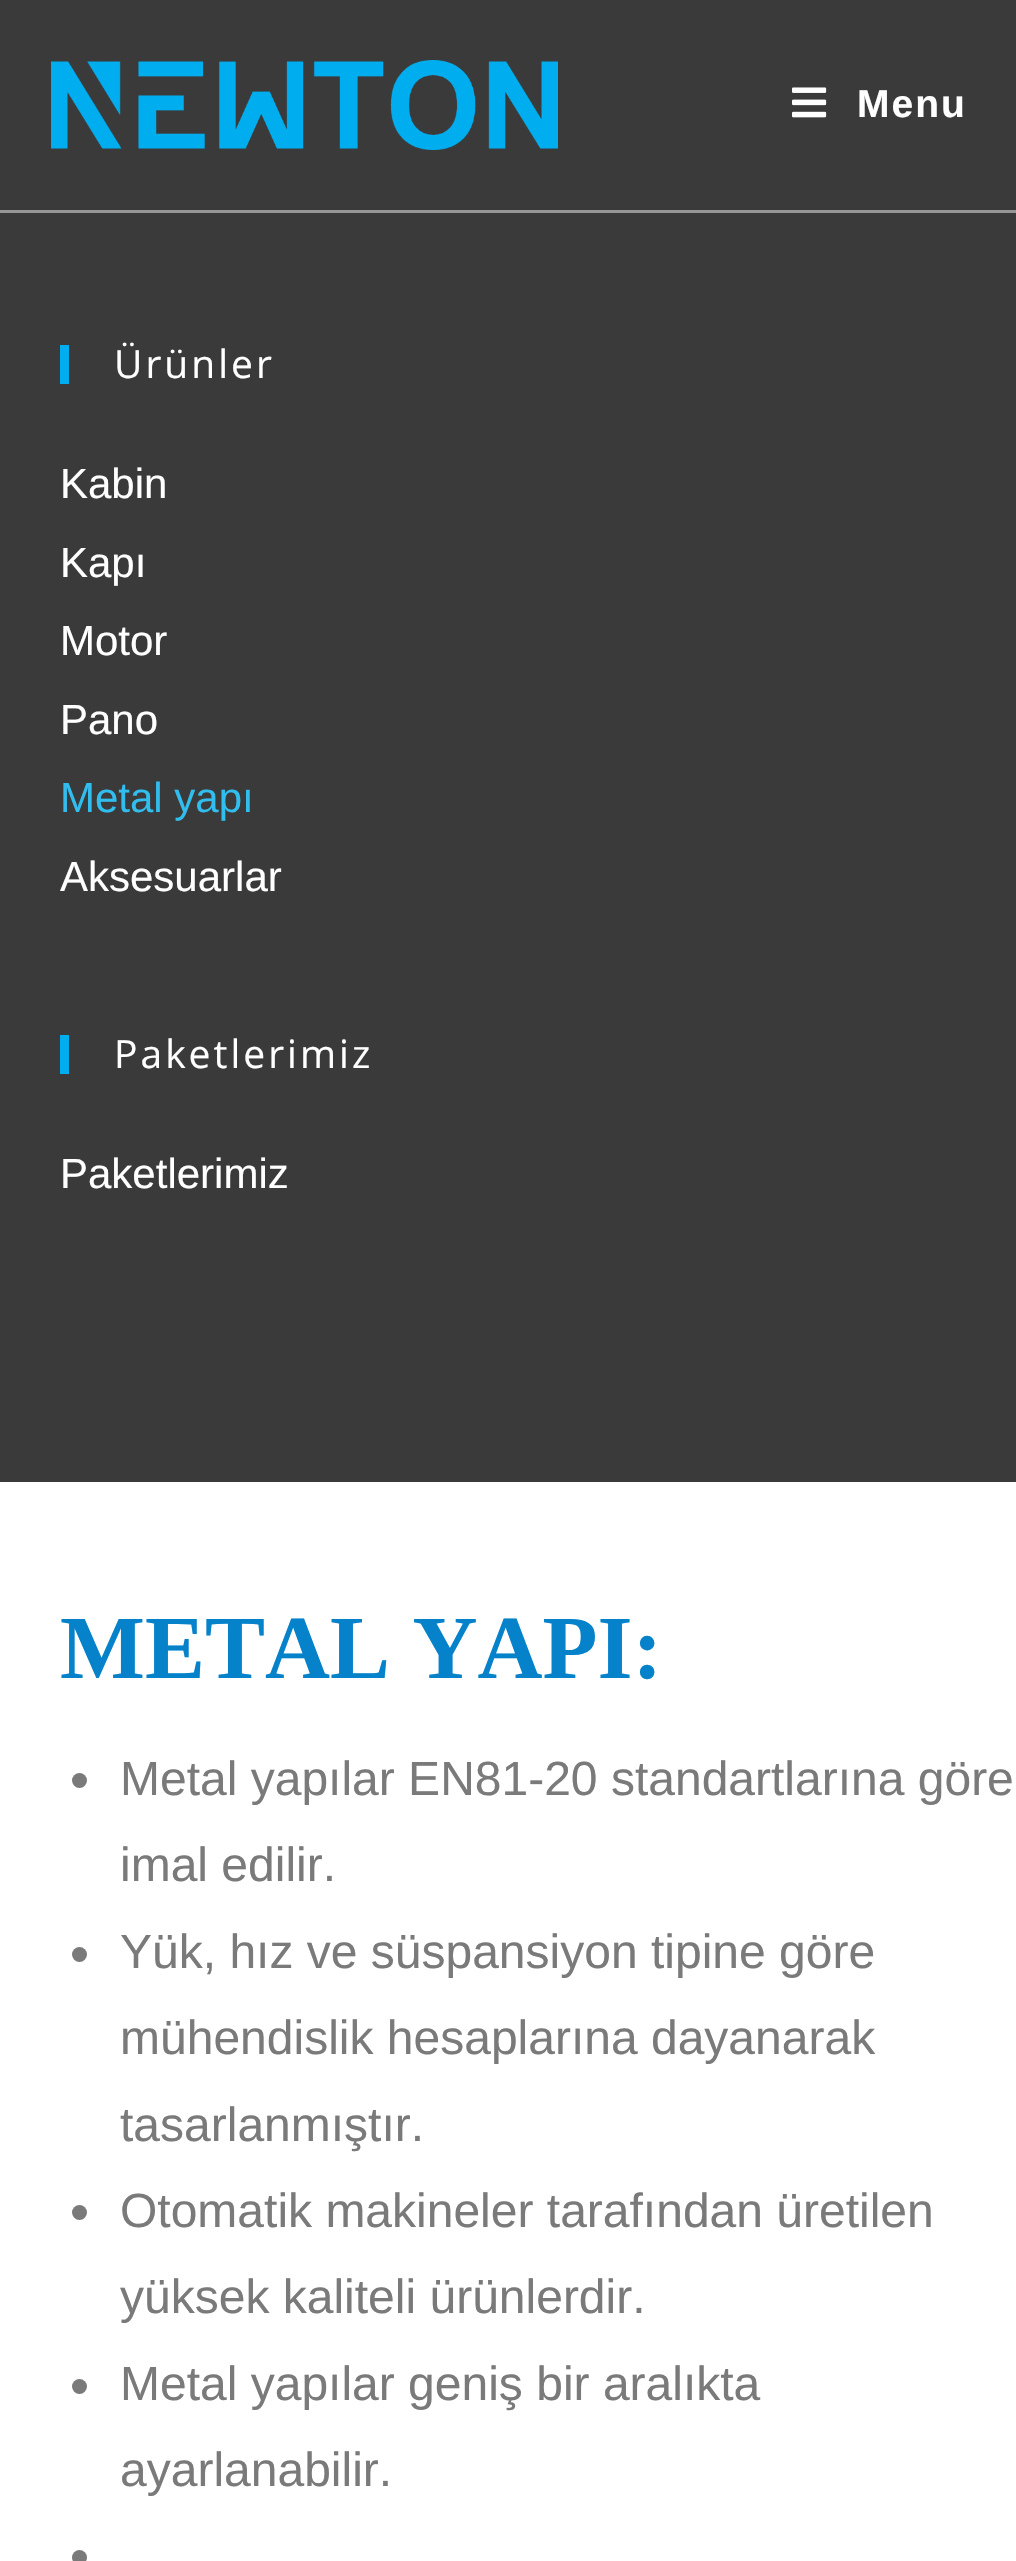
#include "include/core/SkBlurTypes.h"
#include "include/core/SkCanvas.h"
#include "include/core/SkData.h"
#include "include/core/SkFont.h"
#include "include/core/SkFontMgr.h"
#include "include/core/SkImage.h"
#include "include/core/SkMaskFilter.h"
#include "include/core/SkPaint.h"
#include "include/core/SkPathBuilder.h"
#include "include/core/SkTextBlob.h"
#include "include/effects/SkDashPathEffect.h"
#include "include/effects/SkGradientShader.h"
#include "include/utils/SkParsePath.h"

extern sk_sp<SkFontMgr> fontMgr;

void draw(SkCanvas* canvas) {
    SkPaint p;
    p.setAntiAlias(true);
    auto font = [&](const char* family, int weight, float size, bool italic = false) {
        SkFontStyle style(weight, SkFontStyle::kNormal_Width,
            italic ? SkFontStyle::kItalic_Slant : SkFontStyle::kUpright_Slant);
        SkFont result(fontMgr->matchFamilyStyle(family, style), size);
        result.setSubpixel(true);
        return result;
    };
    auto drawTracked = [&](const char* s, float x, float y, const SkFont& font, const SkPaint& ink, float letter, float word) {
        std::vector<SkGlyphID> glyphs(font.countText(s, strlen(s), SkTextEncoding::kUTF8));
        std::vector<float> xs(glyphs.size());
        font.textToGlyphs(s, strlen(s), SkTextEncoding::kUTF8, glyphs);
        font.getXPos(glyphs, xs, x);
        float extra = 0;
        for (size_t i = 0; i < glyphs.size(); i++) {
            xs[i] += extra;
            extra += letter + word * (glyphs[i] == font.unicharToGlyph(' '));
        }
        canvas->drawTextBlob(SkTextBlob::MakeFromPosHGlyphs(glyphs, xs, y, font), 0, 0, ink);
    };
    auto drawPhoto = [&](const char* path, float l, float t, float r, float b) {
        auto image = SkImages::DeferredFromEncodedData(SkData::MakeFromFileName(path));
        canvas->drawImageRect(image, SkRect::MakeLTRB(l, t, r, b), SkSamplingOptions());
    };
    canvas->clear(0xFFFFFFFF);
    p.setColor(0xFF3A3A3A);
    canvas->drawRect(SkRect::MakeLTRB(0, 0, 1016, 210), p);
    p.setColor(0xFF969696);
    canvas->drawRect(SkRect::MakeLTRB(0, 210, 1016, 213), p);
    drawPhoto("media/1.png", 51, 60, 558, 150);
    drawPhoto("media/2.png", 792, 87, 827, 118);
    auto font1 = font("Liberation Sans", 700, 39);
    p.setColor(0xFFFFFFFF);
    drawTracked("Menu", 857, 117, font1, p, 2, 0);
    p.setColor(0xFF3A3A3A);
    canvas->drawRect(SkRect::MakeLTRB(0, 213, 1016, 1482), p);
    p.setColor(0xFF00AEEF);
    canvas->drawRect(SkRect::MakeLTRB(60, 345, 69, 384), p);
    auto font2 = font("Open Sans", 400, 39);
    p.setColor(0xFFFFFFFF);
    drawTracked("Ürünler", 114, 378, font2, p, 3, 0);
    auto font3 = font("Liberation Sans", 400, 42);
    {
        const struct { const char* s; float x, y; } items[] = {
            {"Kabin", 60, 498},
            {"Kapı", 60, 577},
            {"Motor", 60, 655},
            {"Pano", 60, 734},
        };
        for (auto [s, x, y] : items) {
            canvas->drawString(s, x, y, font3, p);
        }
    }
    p.setColor(0xFF32BDEF);
    canvas->drawString("Metal yapı", 60, 812, font3, p);
    p.setColor(0xFFFFFFFF);
    canvas->drawString("Aksesuarlar", 60, 891, font3, p);
    p.setColor(0xFF00AEEF);
    canvas->drawRect(SkRect::MakeLTRB(60, 1035, 69, 1074), p);
    p.setColor(0xFFFFFFFF);
    drawTracked("Paketlerimiz", 114, 1068, font2, p, 3, 0);
    canvas->drawString("Paketlerimiz", 60, 1188, font3, p);
    auto font4 = font("Liberation Serif", 700, 90);
    p.setColor(0xFF0582CA);
    canvas->drawString("METAL YAPI:", 60, 1678, font4, p);
    p.setColor(0xFF7A7A7A);
    canvas->drawCircle(79.5f, 1780.5f, 7.5f, p);
    auto font5 = font("Liberation Sans", 400, 48);
    canvas->drawString("Metal yapılar EN81-20 standartlarına göre", 120, 1795, font5, p);
    canvas->drawString("imal edilir.", 120, 1881, font5, p);
    canvas->drawCircle(79.5f, 1954.5f, 7.5f, p);
    {
        const struct { const char* s; float x, y; } items[] = {
            {"Yük, hız ve süspansiyon tipine göre", 120, 1968},
            {"mühendislik hesaplarına dayanarak", 120, 2054},
            {"tasarlanmıştır.", 120, 2141},
        };
        for (auto [s, x, y] : items) {
            canvas->drawString(s, x, y, font5, p);
        }
    }
    canvas->drawCircle(79.5f, 2212.5f, 7.5f, p);
    canvas->drawString("Otomatik makineler tarafından üretilen", 120, 2227, font5, p);
    canvas->drawString("yüksek kaliteli ürünlerdir.", 120, 2313, font5, p);
    canvas->drawCircle(79.5f, 2386.5f, 7.5f, p);
    canvas->drawString("Metal yapılar geniş bir aralıkta", 120, 2400, font5, p);
    canvas->drawString("ayarlanabilir.", 120, 2486, font5, p);
    canvas->drawCircle(79.5f, 2557.5f, 7.5f, p);
}
